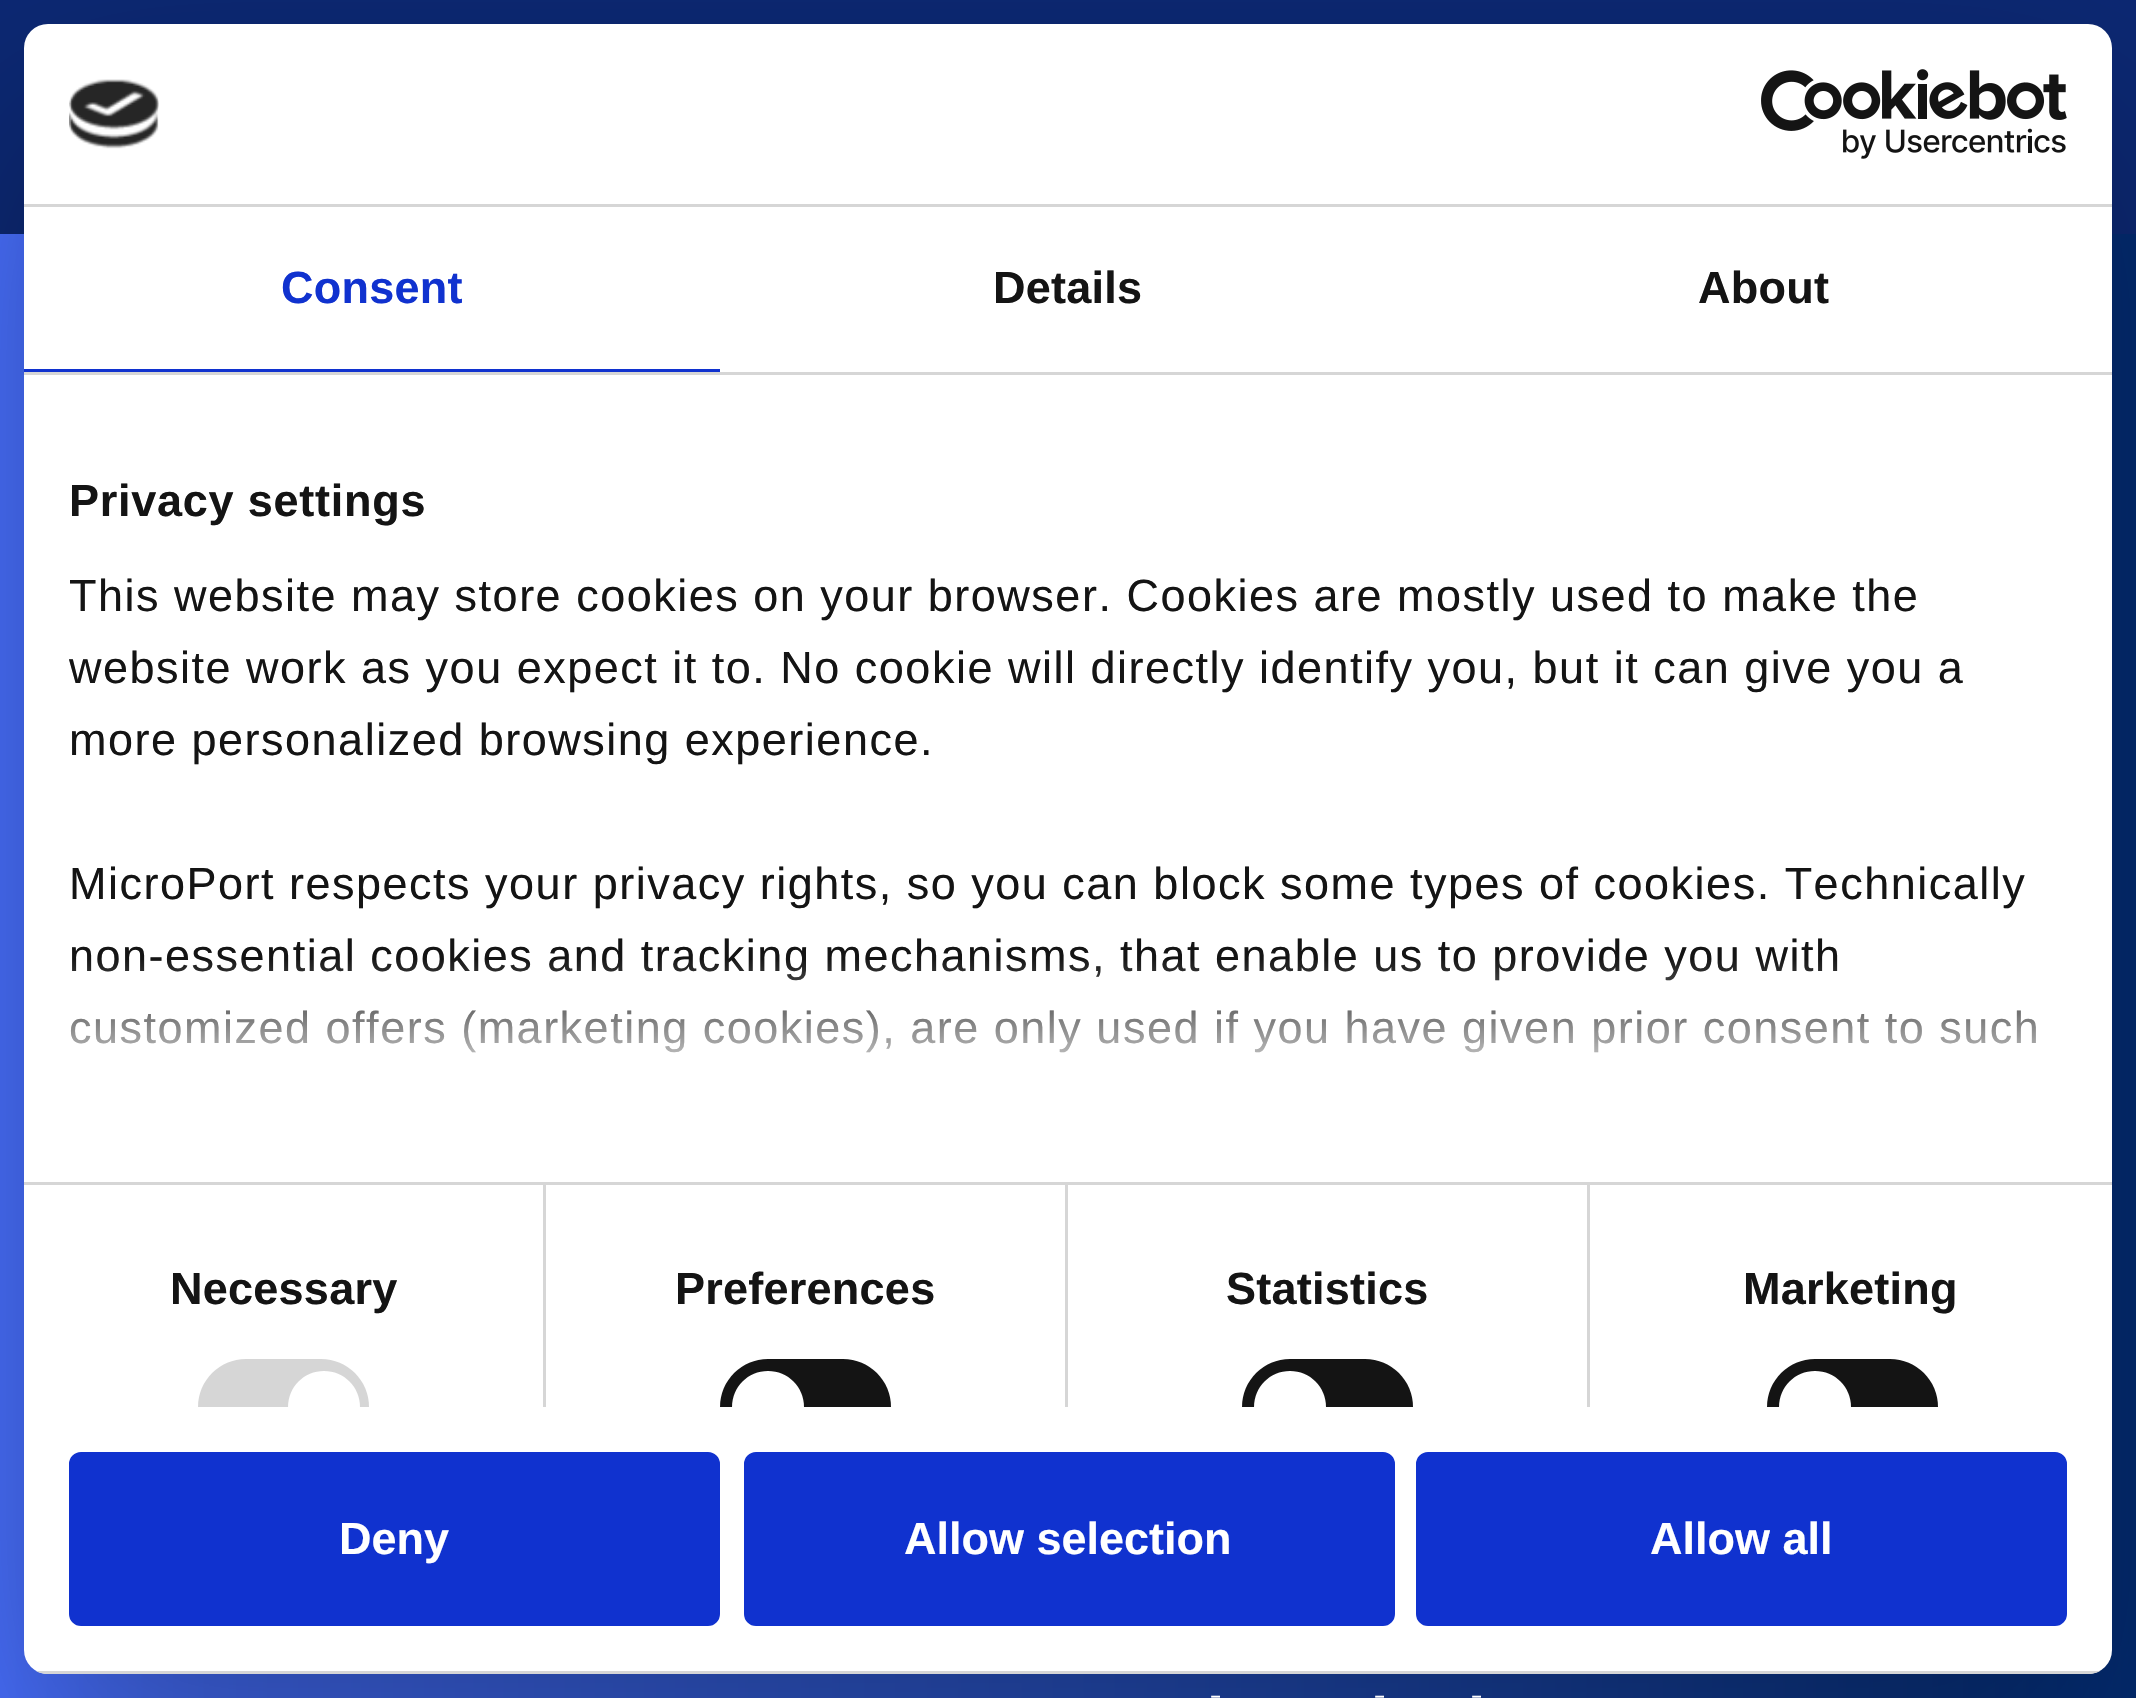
#include "include/core/SkBlurTypes.h"
#include "include/core/SkCanvas.h"
#include "include/core/SkData.h"
#include "include/core/SkFont.h"
#include "include/core/SkFontMgr.h"
#include "include/core/SkImage.h"
#include "include/core/SkMaskFilter.h"
#include "include/core/SkPaint.h"
#include "include/core/SkPathBuilder.h"
#include "include/core/SkTextBlob.h"
#include "include/effects/SkDashPathEffect.h"
#include "include/effects/SkGradientShader.h"
#include "include/utils/SkParsePath.h"

extern sk_sp<SkFontMgr> fontMgr;

void draw(SkCanvas* canvas) {
    SkPaint p;
    p.setAntiAlias(true);
    auto font = [&](const char* family, int weight, float size, bool italic = false) {
        SkFontStyle style(weight, SkFontStyle::kNormal_Width,
            italic ? SkFontStyle::kItalic_Slant : SkFontStyle::kUpright_Slant);
        SkFont result(fontMgr->matchFamilyStyle(family, style), size);
        result.setSubpixel(true);
        return result;
    };
    auto drawTracked = [&](const char* s, float x, float y, const SkFont& font, const SkPaint& ink, float letter, float word) {
        std::vector<SkGlyphID> glyphs(font.countText(s, strlen(s), SkTextEncoding::kUTF8));
        std::vector<float> xs(glyphs.size());
        font.textToGlyphs(s, strlen(s), SkTextEncoding::kUTF8, glyphs);
        font.getXPos(glyphs, xs, x);
        float extra = 0;
        for (size_t i = 0; i < glyphs.size(); i++) {
            xs[i] += extra;
            extra += letter + word * (glyphs[i] == font.unicharToGlyph(' '));
        }
        canvas->drawTextBlob(SkTextBlob::MakeFromPosHGlyphs(glyphs, xs, y, font), 0, 0, ink);
    };
    auto drawPhoto = [&](const char* path, float l, float t, float r, float b) {
        auto image = SkImages::DeferredFromEncodedData(SkData::MakeFromFileName(path));
        canvas->drawImageRect(image, SkRect::MakeLTRB(l, t, r, b), SkSamplingOptions());
    };
    canvas->clear(0xFFFFFFFF);
    p.setColor(0xFF0C2873);
    canvas->drawRect(SkRect::MakeLTRB(0, 0, 2136, 234), p);
    {
        const SkColor colors[] = {0xFF022B71, 0xFF486FFF};
        const float stops[] = {0, 1};
        const SkPoint ends[] = {{2136, 216}, {0, 216}};
        p.setShader(SkGradientShader::MakeLinear(ends, colors, stops, 2, SkTileMode::kClamp));
        p.setAlpha(255);
    }
    canvas->drawRect(SkRect::MakeLTRB(0, 234, 2136, 1698), p);
    p.setShader(nullptr);
    p.setColor(0x4D000000);
    p.setMaskFilter(SkMaskFilter::MakeBlur(kNormal_SkBlurStyle, 102));
    canvas->drawRoundRect(SkRect::MakeLTRB(24, 120, 2112, 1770), 24, 24, p);
    p.setMaskFilter(nullptr);
    p.setColor(0xFFFFFFFF);
    canvas->drawRoundRect(SkRect::MakeLTRB(24, 24, 2112, 1674), 24, 24, p);
    p.setColor(0xFFD6D6D6);
    canvas->drawRect(SkRect::MakeLTRB(24, 204, 2112, 207), p);
    drawPhoto("media/1.png", 69, 79, 159, 149);
    drawPhoto("media/2.png", 1761, 69, 2067, 159);
    canvas->drawRect(SkRect::MakeLTRB(24, 372, 2112, 375), p);
    p.setColor(0xFF1032CF);
    canvas->drawRect(SkRect::MakeLTRB(24, 369, 720, 372), p);
    auto font1 = font("Liberation Sans", 700, 45);
    drawTracked("Consent", 281, 303, font1, p, 0.25f, 0);
    p.setColor(0xFF141414);
    drawTracked("Details", 993, 303, font1, p, 0.25f, 0);
    drawTracked("About", 1698, 303, font1, p, 0.25f, 0);
    p.setColor(0xFFD6D6D6);
    canvas->drawRect(SkRect::MakeLTRB(24, 1182, 2112, 1185), p);
    p.setColor(0xFF141414);
    drawTracked("Privacy settings", 69, 516, font1, p, 0.75f, 0);
    auto font2 = font("Liberation Sans", 400, 45);
    {
        const struct { const char* s; float x, y; } items[] = {
            {"This website may store cookies on your browser. Cookies are mostly used to make the", 69, 611},
            {"website work as you expect it to. No cookie will directly identify you, but it can give you a", 69, 683},
            {"more personalized browsing experience.", 69, 755},
            {"MicroPort respects your privacy rights, so you can block some types of cookies. Technically", 69, 899},
            {"non-essential cookies and tracking mechanisms, that enable us to provide you with", 69, 971},
            {"customized offers (marketing cookies), are only used if you have given prior consent to such", 69, 1043},
        };
        for (auto [s, x, y] : items) {
            drawTracked(s, x, y, font2, p, 1.5f, 0);
        }
    }
    {
        const SkColor colors[] = {0xFFFFFFFF, 0xCCFFFFFF, 0x00FFFFFF};
        const float stops[] = {0, 0.5f, 1};
        const SkPoint ends[] = {{1049, 1182}, {1049, 957}};
        p.setShader(SkGradientShader::MakeLinear(ends, colors, stops, 3, SkTileMode::kClamp));
        p.setAlpha(255);
    }
    canvas->drawRect(SkRect::MakeLTRB(70, 960, 2036, 1053), p);
    p.setShader(nullptr);
    p.setColor(0xFFD6D6D6);
    canvas->drawRect(SkRect::MakeLTRB(543, 1185, 546, 1407), p);
    p.setColor(0xFF141414);
    drawTracked("Necessary", 170, 1304, font1, p, 0.25f, 0);
    p.setColor(0xFFD6D6D6);
    canvas->drawPath(SkPathBuilder().moveTo(246, 1359).lineTo(321, 1359).cubicTo(347.5f, 1359, 369, 1380.5f, 369, 1407).lineTo(198, 1407).cubicTo(198, 1380.5f, 219.5f, 1359, 246, 1359).close().detach(), p);
    p.setColor(0xFFFFFFFF);
    canvas->drawPath(SkPathBuilder().moveTo(324, 1371).cubicTo(344, 1371, 360, 1387, 360, 1407).lineTo(288, 1407).cubicTo(288, 1387, 304, 1371, 324, 1371).close().detach(), p);
    p.setColor(0xFFD6D6D6);
    canvas->drawRect(SkRect::MakeLTRB(1065, 1185, 1068, 1407), p);
    p.setColor(0xFF141414);
    drawTracked("Preferences", 675, 1304, font1, p, 0.25f, 0);
    canvas->drawPath(SkPathBuilder().moveTo(768, 1359).lineTo(843, 1359).cubicTo(869.5f, 1359, 891, 1380.5f, 891, 1407).lineTo(720, 1407).cubicTo(720, 1380.5f, 741.5f, 1359, 768, 1359).close().detach(), p);
    p.setColor(0xFFFFFFFF);
    canvas->drawPath(SkPathBuilder().moveTo(768, 1371).cubicTo(788, 1371, 804, 1387, 804, 1407).lineTo(732, 1407).cubicTo(732, 1387, 748, 1371, 768, 1371).close().detach(), p);
    p.setColor(0xFFD6D6D6);
    canvas->drawRect(SkRect::MakeLTRB(1587, 1185, 1590, 1407), p);
    p.setColor(0xFF141414);
    drawTracked("Statistics", 1226, 1304, font1, p, 0.25f, 0);
    canvas->drawPath(SkPathBuilder().moveTo(1290, 1359).lineTo(1365, 1359).cubicTo(1391.5f, 1359, 1413, 1380.5f, 1413, 1407).lineTo(1242, 1407).cubicTo(1242, 1380.5f, 1263.5f, 1359, 1290, 1359).close().detach(), p);
    p.setColor(0xFFFFFFFF);
    canvas->drawPath(SkPathBuilder().moveTo(1290, 1371).cubicTo(1310, 1371, 1326, 1387, 1326, 1407).lineTo(1254, 1407).cubicTo(1254, 1387, 1270, 1371, 1290, 1371).close().detach(), p);
    p.setColor(0xFF141414);
    drawTracked("Marketing", 1743, 1304, font1, p, 0.25f, 0);
    canvas->drawPath(SkPathBuilder().moveTo(1815, 1359).lineTo(1890, 1359).cubicTo(1916.5f, 1359, 1938, 1380.5f, 1938, 1407).lineTo(1767, 1407).cubicTo(1767, 1380.5f, 1788.5f, 1359, 1815, 1359).close().detach(), p);
    p.setColor(0xFFFFFFFF);
    canvas->drawPath(SkPathBuilder().moveTo(1815, 1371).cubicTo(1835, 1371, 1851, 1387, 1851, 1407).lineTo(1779, 1407).cubicTo(1779, 1387, 1795, 1371, 1815, 1371).close().detach(), p);
    canvas->save();
    canvas->clipPath(SkPathBuilder().moveTo(48, 24).lineTo(2088, 24).cubicTo(2101.5f, 24, 2112, 34.5f, 2112, 48).lineTo(2112, 1650).cubicTo(2112, 1663.5f, 2101.5f, 1674, 2088, 1674).lineTo(48, 1674).cubicTo(34.5f, 1674, 24, 1663.5f, 24, 1650).lineTo(24, 48).cubicTo(24, 34.5f, 34.5f, 24, 48, 24).close().detach(), true);
    p.setColor(0xFFD6D6D6);
    canvas->drawRect(SkRect::MakeLTRB(36, 1671, 2100, 1674), p);
    canvas->restore();
    p.setColor(0xFF1032CF);
    canvas->drawRoundRect(SkRect::MakeLTRB(72, 1455, 717, 1623), 9, 9, p);
    p.setStyle(SkPaint::kStroke_Style);
    p.setStrokeWidth(6);
    canvas->drawRoundRect(SkRect::MakeLTRB(72, 1455, 717, 1623), 9, 9, p);
    p.setStyle(SkPaint::kFill_Style);
    p.setColor(0xFFFFFFFF);
    canvas->drawString("Deny", 339, 1554, font1, p);
    p.setColor(0xFF1032CF);
    canvas->drawRoundRect(SkRect::MakeLTRB(747, 1455, 1392, 1623), 9, 9, p);
    p.setStyle(SkPaint::kStroke_Style);
    canvas->drawRoundRect(SkRect::MakeLTRB(747, 1455, 1392, 1623), 9, 9, p);
    p.setStyle(SkPaint::kFill_Style);
    p.setColor(0xFFFFFFFF);
    canvas->drawString("Allow selection", 904, 1554, font1, p);
    p.setColor(0xFF1032CF);
    canvas->drawRoundRect(SkRect::MakeLTRB(1419, 1455, 2064, 1623), 9, 9, p);
    p.setStyle(SkPaint::kStroke_Style);
    canvas->drawRoundRect(SkRect::MakeLTRB(1419, 1455, 2064, 1623), 9, 9, p);
    p.setStyle(SkPaint::kFill_Style);
    p.setColor(0xFFFFFFFF);
    canvas->drawString("Allow all", 1650, 1554, font1, p);
    auto font3 = font("Fira Sans", 300, 33);
    {
        const struct { const char* s; float x, y; } items[] = {
            {"-", 1209, 1707},
            {"-", 1373, 1707},
            {"-", 1470, 1707},
        };
        for (auto [s, x, y] : items) {
            canvas->drawString(s, x, y, font3, p);
        }
    }
}
